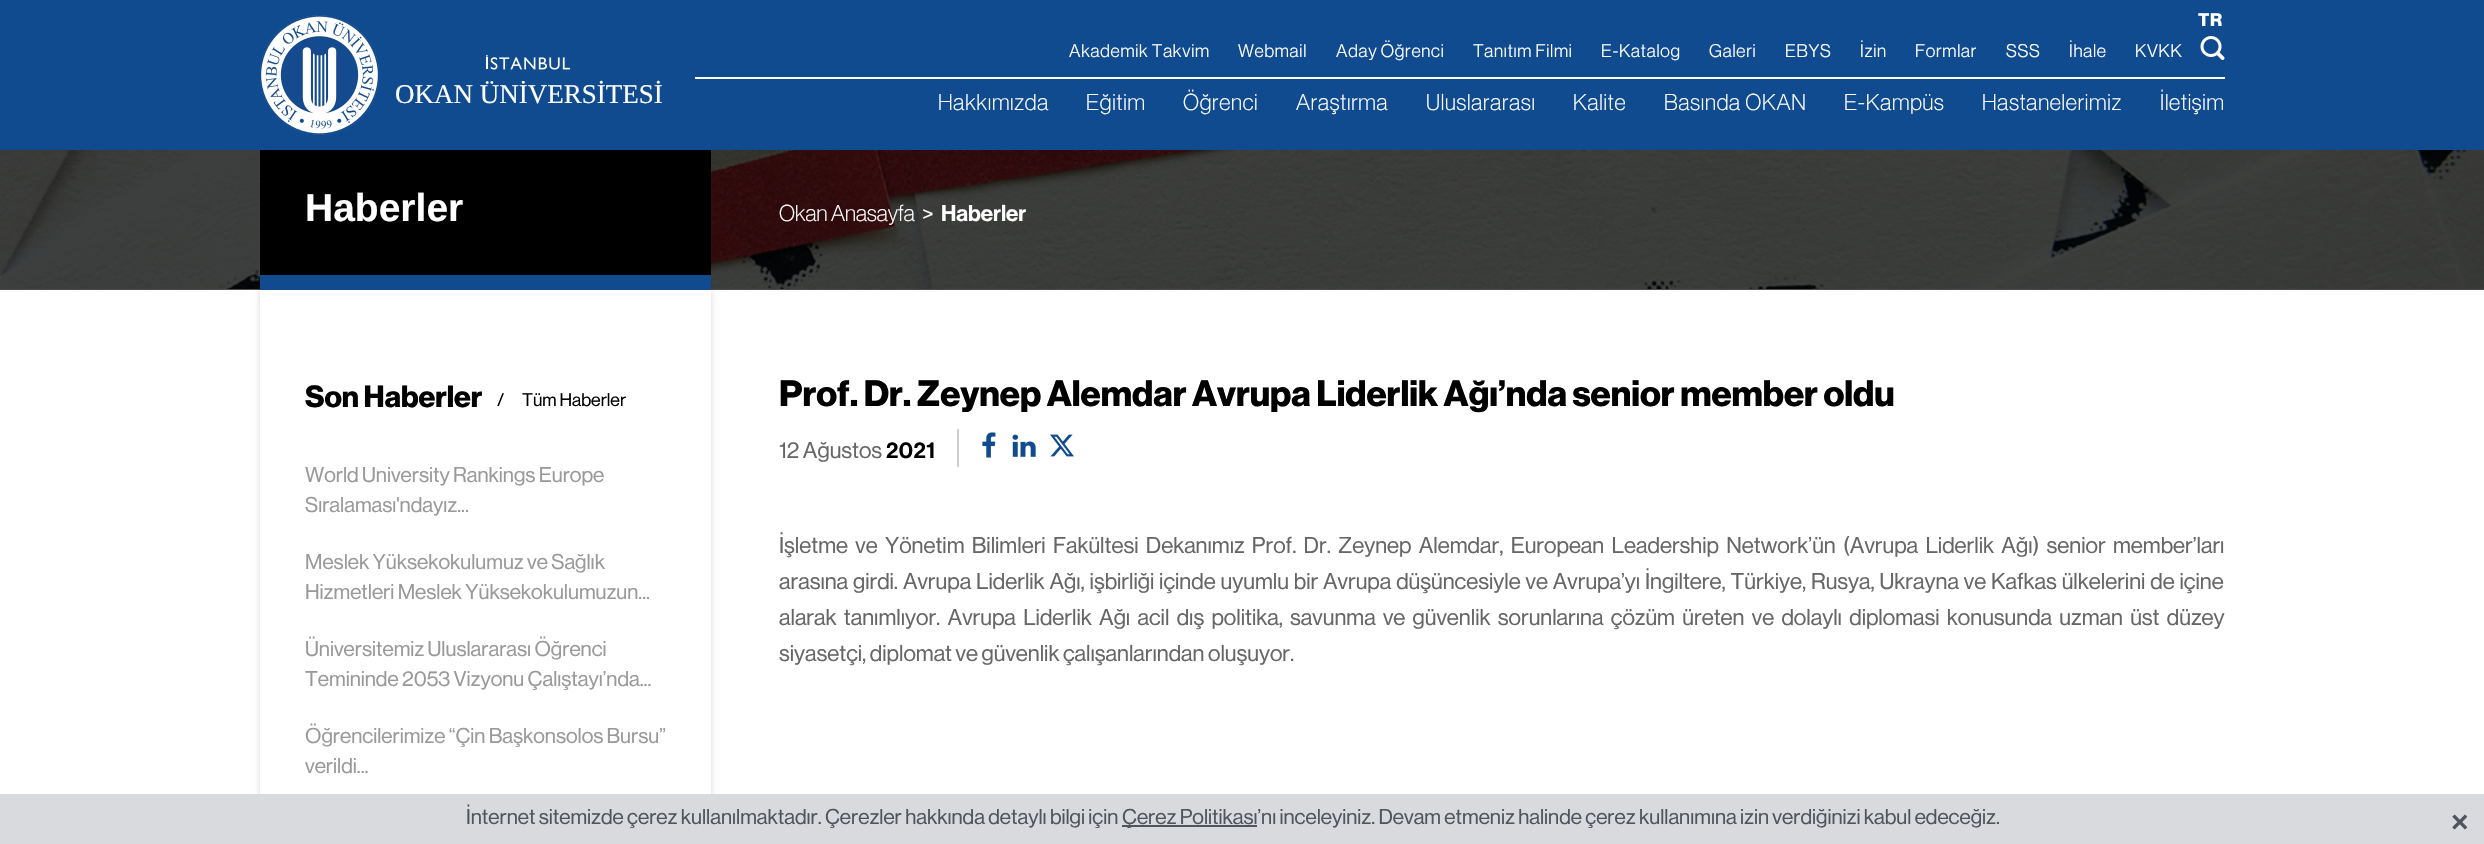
#include "include/core/SkBlurTypes.h"
#include "include/core/SkCanvas.h"
#include "include/core/SkData.h"
#include "include/core/SkFont.h"
#include "include/core/SkFontMgr.h"
#include "include/core/SkImage.h"
#include "include/core/SkMaskFilter.h"
#include "include/core/SkPaint.h"
#include "include/core/SkPathBuilder.h"
#include "include/core/SkTextBlob.h"
#include "include/effects/SkDashPathEffect.h"
#include "include/effects/SkGradientShader.h"
#include "include/utils/SkParsePath.h"

extern sk_sp<SkFontMgr> fontMgr;

void draw(SkCanvas* canvas) {
    SkPaint p;
    p.setAntiAlias(true);
    auto font = [&](const char* family, int weight, float size, bool italic = false) {
        SkFontStyle style(weight, SkFontStyle::kNormal_Width,
            italic ? SkFontStyle::kItalic_Slant : SkFontStyle::kUpright_Slant);
        SkFont result(fontMgr->matchFamilyStyle(family, style), size);
        result.setSubpixel(true);
        return result;
    };
    auto drawTracked = [&](const char* s, float x, float y, const SkFont& font, const SkPaint& ink, float letter, float word) {
        std::vector<SkGlyphID> glyphs(font.countText(s, strlen(s), SkTextEncoding::kUTF8));
        std::vector<float> xs(glyphs.size());
        font.textToGlyphs(s, strlen(s), SkTextEncoding::kUTF8, glyphs);
        font.getXPos(glyphs, xs, x);
        float extra = 0;
        for (size_t i = 0; i < glyphs.size(); i++) {
            xs[i] += extra;
            extra += letter + word * (glyphs[i] == font.unicharToGlyph(' '));
        }
        canvas->drawTextBlob(SkTextBlob::MakeFromPosHGlyphs(glyphs, xs, y, font), 0, 0, ink);
    };
    auto drawPhoto = [&](const char* path, float l, float t, float r, float b) {
        auto image = SkImages::DeferredFromEncodedData(SkData::MakeFromFileName(path));
        canvas->drawImageRect(image, SkRect::MakeLTRB(l, t, r, b), SkSamplingOptions());
    };
    canvas->clear(0xFFFFFFFF);
    p.setColor(0xFF104B8F);
    canvas->drawRect(SkRect::MakeLTRB(0, 0, 2484, 150), p);
    auto font1 = font("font", 700, 18);
    p.setColor(0xFFFFFFFF);
    drawTracked("TR", 2198, 26, font1, p, 0.75f, 0);
    auto font2 = font("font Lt", 400, 18);
    {
        const struct { const char* s; float x, y; } items[] = {
            {"Akademik Takvim", 1069, 57},
            {"Webmail", 1238, 57},
            {"Aday Öğrenci", 1336, 57},
            {"Tanıtım Filmi", 1473, 57},
            {"E-Katalog", 1601, 57},
            {"Galeri", 1709, 57},
            {"EBYS", 1785, 57},
            {"İzin", 1860, 57},
            {"Formlar", 1915, 57},
            {"SSS", 2006, 57},
            {"İhale", 2069, 57},
            {"KVKK", 2135, 57},
        };
        for (auto [s, x, y] : items) {
            drawTracked(s, x, y, font2, p, 0.75f, 0);
        }
    }
    drawPhoto("media/1.png", 2200, 36, 2225, 60);
    auto font3 = font("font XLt", 300, 22.5f);
    {
        const struct { const char* s; float x, y; } items[] = {
            {"Hakkımızda", 938, 110},
            {"Eğitim", 1086, 110},
            {"Öğrenci", 1183, 110},
            {"Araştırma", 1296, 110},
            {"Uluslararası", 1426, 110},
            {"Kalite", 1573, 110},
            {"Basında OKAN", 1664, 110},
            {"E-Kampüs", 1844, 110},
            {"Hastanelerimiz", 1982, 110},
            {"İletişim", 2160, 110},
        };
        for (auto [s, x, y] : items) {
            drawTracked(s, x, y, font3, p, 0.75f, 0);
        }
    }
    canvas->drawRect(SkRect::MakeLTRB(695, 77, 2225, 79), p);
    drawPhoto("media/2.png", 260, 15, 379, 135);
    auto font4 = font("Liberation Serif", 400, 27);
    canvas->drawString("OKAN ÜNİVERSİTESİ", 395, 103, font4, p);
    p.setColor(0xFF104B8F);
    canvas->drawRect(SkRect::MakeLTRB(522, 80, 524, 81), p);
    drawPhoto("media/3.png", 486, 55, 570, 70);
    canvas->save();
    canvas->clipPath(SkPathBuilder(SkPathFillType::kEvenOdd).moveTo(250, 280).lineTo(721, 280).lineTo(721, 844).lineTo(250, 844).close().moveTo(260, 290).lineTo(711, 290).lineTo(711, 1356).lineTo(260, 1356).close().detach(), true);
    p.setColor(0x26000000);
    p.setMaskFilter(SkMaskFilter::MakeBlur(kNormal_SkBlurStyle, 3));
    canvas->drawRect(SkRect::MakeLTRB(260, 290, 711, 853), p);
    p.setMaskFilter(nullptr);
    canvas->restore();
    drawPhoto("media/4.png", 0, 150, 2484, 289);
    p.setColor(0xB3000000);
    canvas->drawRect(SkRect::MakeLTRB(0, 150, 2484, 290), p);
    p.setColor(0xFF000000);
    canvas->drawRect(SkRect::MakeLTRB(260, 150, 711, 275), p);
    auto font5 = font("Liberation Sans", 700, 39);
    p.setColor(0xFFFFFFFF);
    canvas->drawString("Haberler", 305, 221, font5, p);
    p.setColor(0xFF104B8F);
    canvas->drawRect(SkRect::MakeLTRB(260, 275, 711, 290), p);
    p.setColor(0xFFFFFFFF);
    canvas->drawString("Okan Anasayfa", 779, 221, font3, p);
    auto font6 = font("font", 400, 22.5f);
    canvas->drawString(">", 922, 221, font6, p);
    auto font7 = font("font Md", 500, 22.5f);
    canvas->drawString("Haberler", 941, 221, font7, p);
    auto font8 = font("font", 700, 30);
    p.setColor(0xFF000000);
    canvas->drawString("Son Haberler", 305, 407, font8, p);
    auto font9 = font("font", 400, 18);
    canvas->drawString("/", 497, 406, font9, p);
    canvas->drawString("Tüm Haberler", 522, 406, font9, p);
    auto font10 = font("font", 400, 21);
    p.setColor(0xFF999999);
    {
        const struct { const char* s; float x, y; } items[] = {
            {"World University Rankings Europe", 305, 482},
            {"Sıralaması'ndayız...", 305, 512},
            {"Meslek Yüksekokulumuz ve Sağlık", 305, 569},
            {"Hizmetleri Meslek Yüksekokulumuzun...", 305, 599},
            {"Üniversitemiz Uluslararası Öğrenci", 305, 656},
            {"Temininde 2053 Vizyonu Çalıştayı’nda...", 305, 686},
            {"Öğrencilerimize “Çin Başkonsolos Bursu”", 305, 743},
            {"verildi...", 305, 773},
        };
        for (auto [s, x, y] : items) {
            canvas->drawString(s, x, y, font10, p);
        }
    }
    auto font11 = font("font", 700, 36);
    p.setColor(0xFF000000);
    canvas->drawString("Prof. Dr. Zeynep Alemdar Avrupa Liderlik Ağı’nda senior member oldu", 779, 406, font11, p);
    p.setColor(0xFF666666);
    canvas->drawString("12 Ağustos", 779, 458, font6, p);
    p.setColor(0xFF000000);
    drawTracked("2021", 886, 458, font7, p, 0.5f, 0);
    p.setColor(0xFFCCCCCC);
    canvas->drawRect(SkRect::MakeLTRB(957, 429, 959, 467), p);
    drawPhoto("media/5.png", 982, 432, 996, 458);
    drawPhoto("media/6.png", 1012, 434, 1036, 457);
    drawPhoto("media/7.png", 1050, 434, 1074, 457);
    p.setColor(0xFF666666);
    drawTracked("İşletme ve Yönetim Bilimleri Fakültesi Dekanımız Prof. Dr. Zeynep Alemdar, European Leadership Network’ün (Avrupa Liderlik Ağı) senior member’ları", 779, 553, font6, p, 0, 3.75f);
    drawTracked("arasına girdi. Avrupa Liderlik Ağı, işbirliği içinde uyumlu bir Avrupa düşüncesiyle ve Avrupa’yı İngiltere, Türkiye, Rusya, Ukrayna ve Kafkas ülkelerini de içine", 779, 589, font6, p, 0, 1.3f);
    drawTracked("alarak tanımlıyor. Avrupa Liderlik Ağı acil dış politika, savunma ve güvenlik sorunlarına çözüm üreten ve dolaylı diplomasi konusunda uzman üst düzey", 779, 625, font6, p, 0, 3.75f);
    canvas->drawString("siyasetçi, diplomat ve güvenlik çalışanlarından oluşuyor.", 779, 661, font6, p);
    p.setColor(0xFFD9DADE);
    canvas->drawRect(SkRect::MakeLTRB(0, 794, 2484, 844), p);
    p.setColor(0xFF50545D);
    canvas->drawString("İnternet sitemizde çerez kullanılmaktadır. Çerezler hakkında detaylı bilgi için", 466, 824, font10, p);
    canvas->drawRect(SkRect::MakeLTRB(1122, 825, 1257, 827), p);
    canvas->drawString("Çerez Politikası’nı inceleyiniz. Devam etmeniz halinde çerez kullanımına izin verdiğinizi kabul edeceğiz.", 1122, 824, font10, p);
    auto font12 = font("Liberation Sans", 700, 30);
    canvas->drawString("×", 2451, 832, font12, p);
}
